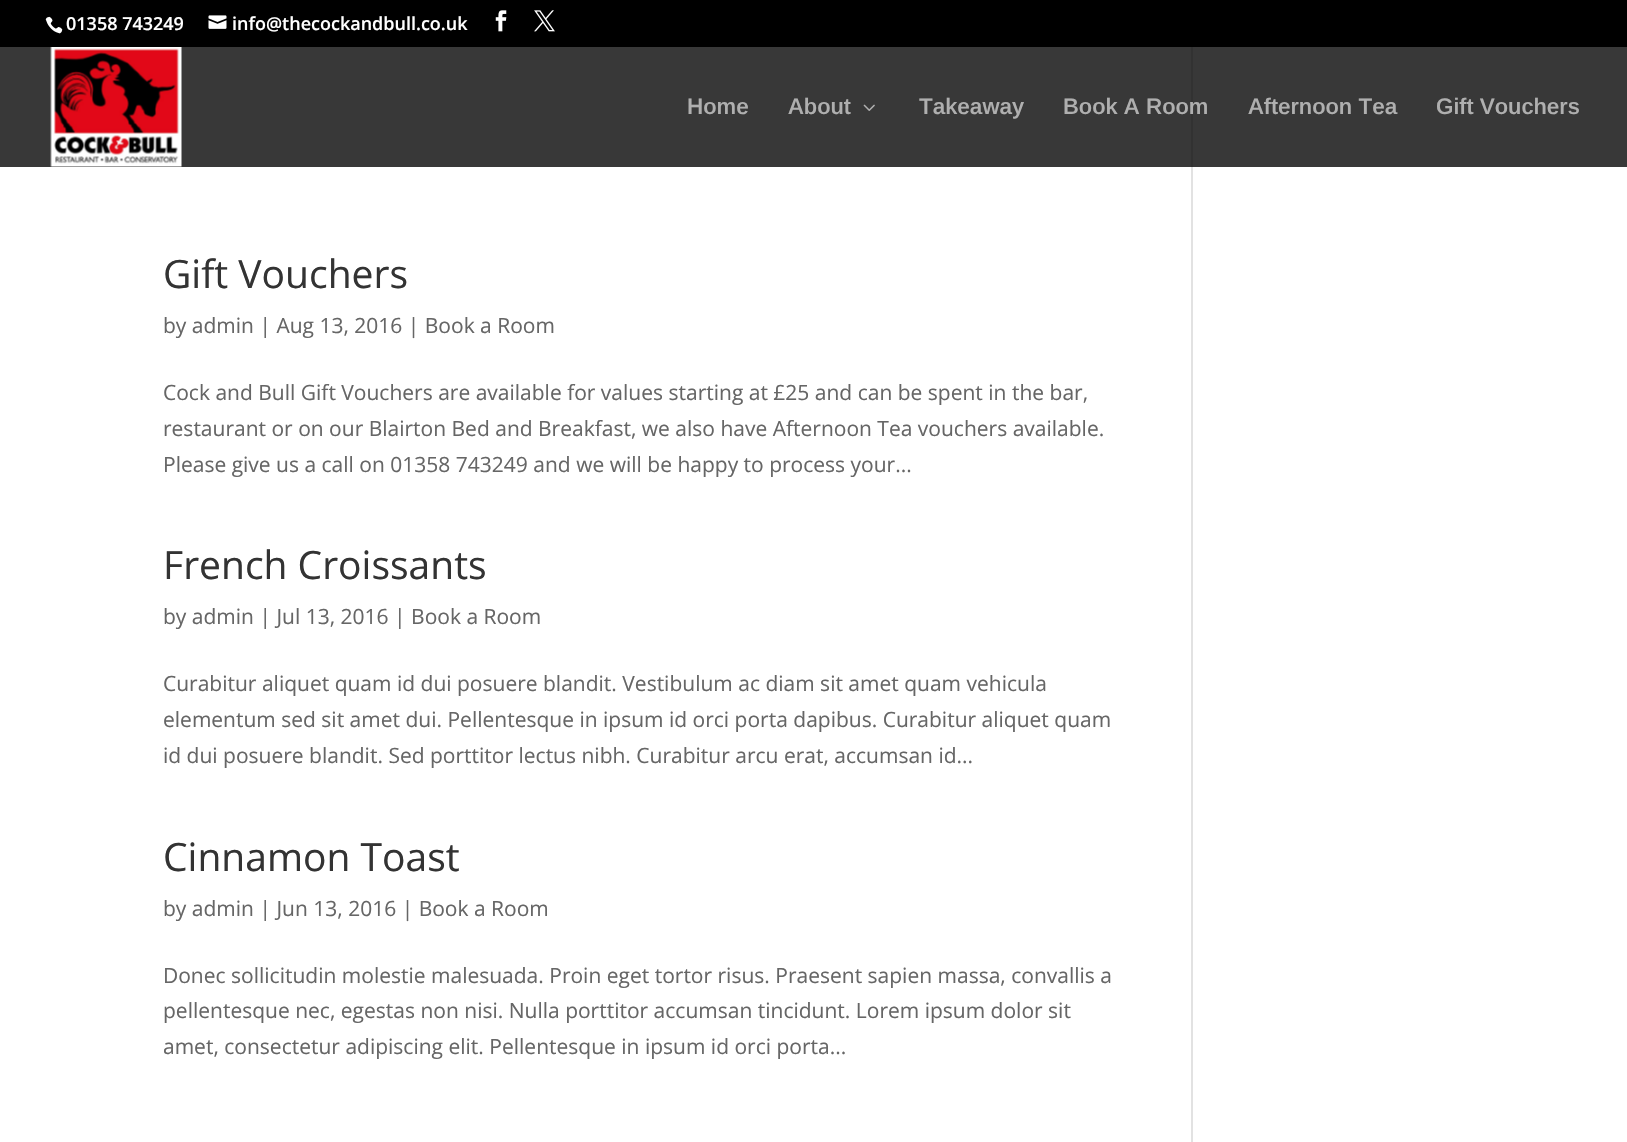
#include "include/core/SkBlurTypes.h"
#include "include/core/SkCanvas.h"
#include "include/core/SkData.h"
#include "include/core/SkFont.h"
#include "include/core/SkFontMgr.h"
#include "include/core/SkImage.h"
#include "include/core/SkMaskFilter.h"
#include "include/core/SkPaint.h"
#include "include/core/SkPathBuilder.h"
#include "include/core/SkTextBlob.h"
#include "include/effects/SkDashPathEffect.h"
#include "include/effects/SkGradientShader.h"
#include "include/utils/SkParsePath.h"

extern sk_sp<SkFontMgr> fontMgr;

void draw(SkCanvas* canvas) {
    SkPaint p;
    p.setAntiAlias(true);
    auto font = [&](const char* family, int weight, float size, bool italic = false) {
        SkFontStyle style(weight, SkFontStyle::kNormal_Width,
            italic ? SkFontStyle::kItalic_Slant : SkFontStyle::kUpright_Slant);
        SkFont result(fontMgr->matchFamilyStyle(family, style), size);
        result.setSubpixel(true);
        return result;
    };
    auto drawPhoto = [&](const char* path, float l, float t, float r, float b) {
        auto image = SkImages::DeferredFromEncodedData(SkData::MakeFromFileName(path));
        canvas->drawImageRect(image, SkRect::MakeLTRB(l, t, r, b), SkSamplingOptions());
    };
    canvas->clear(0xFFFFFFFF);
    p.setColor(0xFF383838);
    canvas->drawRect(SkRect::MakeLTRB(0, 47, 1627, 167), p);
    p.setColor(0xFF000000);
    canvas->drawRect(SkRect::MakeLTRB(0, 0, 1627, 47), p);
    drawPhoto("media/1.png", 45, 16, 63, 34);
    auto font1 = font("Open Sans", 600, 18);
    p.setColor(0xFFFFFFFF);
    canvas->drawString("01358 743249", 66, 30, font1, p);
    drawPhoto("media/2.png", 208, 15, 227, 29);
    canvas->drawString("info@thecockandbull.co.uk", 232, 30, font1, p);
    drawPhoto("media/3.png", 495, 10, 507, 32);
    drawPhoto("media/4.png", 534, 10, 555, 32);
    drawPhoto("media/5.png", 50, 47, 182, 167);
    auto font2 = font("Arimo", 600, 22.5f);
    p.setColor(0xFFAFAFAF);
    canvas->drawString("Home", 687, 114, font2, p);
    canvas->drawString("About", 788, 114, font2, p);
    drawPhoto("media/6.png", 863, 104, 875, 111);
    canvas->drawString("Takeaway", 919, 114, font2, p);
    p.setColor(0xFF323232);
    canvas->drawRect(SkRect::MakeLTRB(1191, 47, 1193, 167), p);
    p.setColor(0xFFAFAFAF);
    {
        const struct { const char* s; float x, y; } items[] = {
            {"Book A Room", 1063, 114},
            {"Afternoon Tea", 1248, 114},
            {"Gift Vouchers", 1436, 114},
        };
        for (auto [s, x, y] : items) {
            canvas->drawString(s, x, y, font2, p);
        }
    }
    auto font3 = font("Open Sans", 400, 39);
    p.setColor(0xFF333333);
    canvas->drawString("Gift Vouchers", 163, 288, font3, p);
    auto font4 = font("Open Sans", 400, 21);
    p.setColor(0xFF666666);
    {
        const struct { const char* s; float x, y; } items[] = {
            {"by admin | Aug 13, 2016 | Book a Room", 163, 333},
            {"Cock and Bull Gift Vouchers are available for values starting at £25 and can be spent in the bar,", 163, 400},
            {"restaurant or on our Blairton Bed and Breakfast, we also have Afternoon Tea vouchers available.", 163, 436},
            {"Please give us a call on 01358 743249 and we will be happy to process your...", 163, 472},
        };
        for (auto [s, x, y] : items) {
            canvas->drawString(s, x, y, font4, p);
        }
    }
    p.setColor(0xFF333333);
    canvas->drawString("French Croissants", 163, 579, font3, p);
    p.setColor(0xFF666666);
    {
        const struct { const char* s; float x, y; } items[] = {
            {"by admin | Jul 13, 2016 | Book a Room", 163, 624},
            {"Curabitur aliquet quam id dui posuere blandit. Vestibulum ac diam sit amet quam vehicula", 163, 691},
            {"elementum sed sit amet dui. Pellentesque in ipsum id orci porta dapibus. Curabitur aliquet quam", 163, 727},
            {"id dui posuere blandit. Sed porttitor lectus nibh. Curabitur arcu erat, accumsan id...", 163, 763},
        };
        for (auto [s, x, y] : items) {
            canvas->drawString(s, x, y, font4, p);
        }
    }
    p.setColor(0xFF333333);
    canvas->drawString("Cinnamon Toast", 163, 871, font3, p);
    p.setColor(0xFF666666);
    {
        const struct { const char* s; float x, y; } items[] = {
            {"by admin | Jun 13, 2016 | Book a Room", 163, 916},
            {"Donec sollicitudin molestie malesuada. Proin eget tortor risus. Praesent sapien massa, convallis a", 163, 983},
            {"pellentesque nec, egestas non nisi. Nulla porttitor accumsan tincidunt. Lorem ipsum dolor sit", 163, 1018},
            {"amet, consectetur adipiscing elit. Pellentesque in ipsum id orci porta...", 163, 1054},
        };
        for (auto [s, x, y] : items) {
            canvas->drawString(s, x, y, font4, p);
        }
    }
    p.setColor(0xFFE2E2E2);
    canvas->drawRect(SkRect::MakeLTRB(1191, 167, 1193, 1142), p);
}
